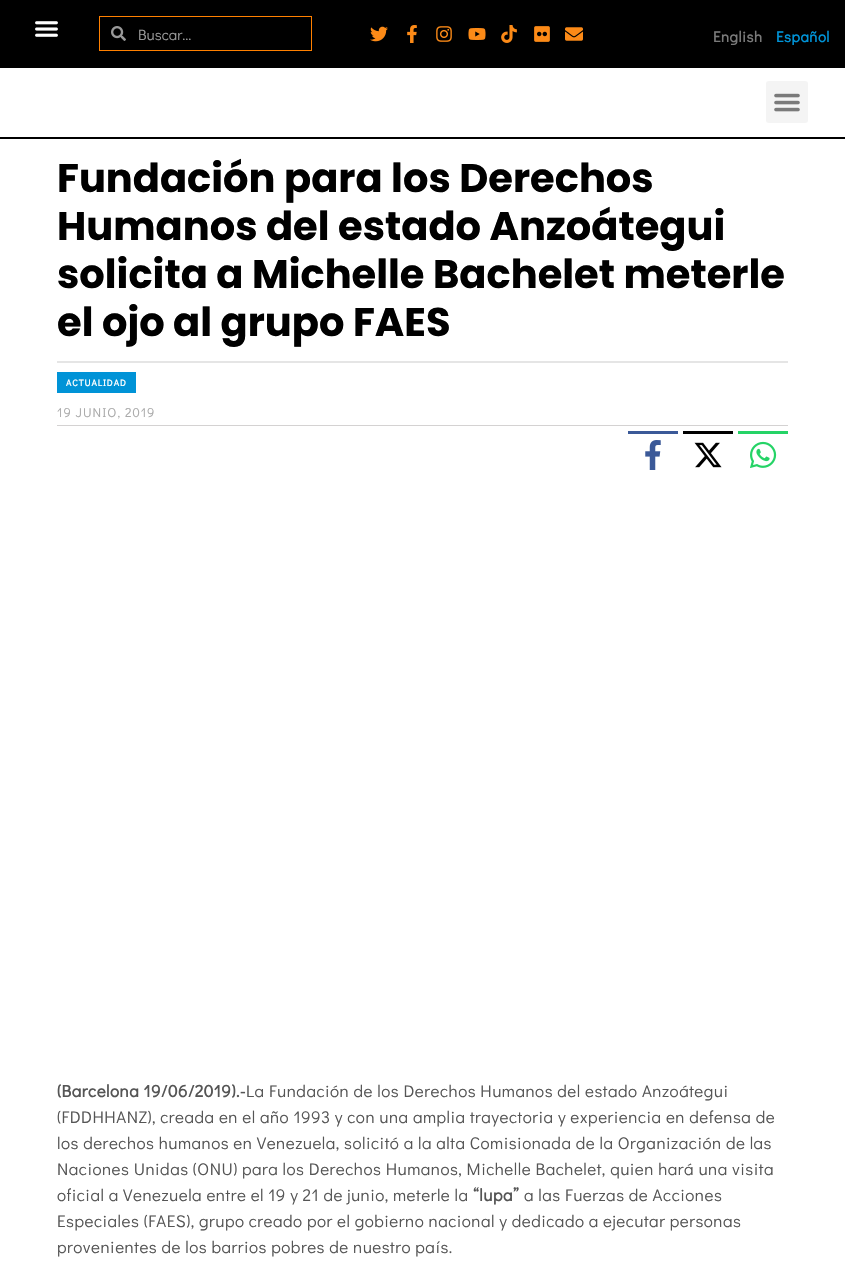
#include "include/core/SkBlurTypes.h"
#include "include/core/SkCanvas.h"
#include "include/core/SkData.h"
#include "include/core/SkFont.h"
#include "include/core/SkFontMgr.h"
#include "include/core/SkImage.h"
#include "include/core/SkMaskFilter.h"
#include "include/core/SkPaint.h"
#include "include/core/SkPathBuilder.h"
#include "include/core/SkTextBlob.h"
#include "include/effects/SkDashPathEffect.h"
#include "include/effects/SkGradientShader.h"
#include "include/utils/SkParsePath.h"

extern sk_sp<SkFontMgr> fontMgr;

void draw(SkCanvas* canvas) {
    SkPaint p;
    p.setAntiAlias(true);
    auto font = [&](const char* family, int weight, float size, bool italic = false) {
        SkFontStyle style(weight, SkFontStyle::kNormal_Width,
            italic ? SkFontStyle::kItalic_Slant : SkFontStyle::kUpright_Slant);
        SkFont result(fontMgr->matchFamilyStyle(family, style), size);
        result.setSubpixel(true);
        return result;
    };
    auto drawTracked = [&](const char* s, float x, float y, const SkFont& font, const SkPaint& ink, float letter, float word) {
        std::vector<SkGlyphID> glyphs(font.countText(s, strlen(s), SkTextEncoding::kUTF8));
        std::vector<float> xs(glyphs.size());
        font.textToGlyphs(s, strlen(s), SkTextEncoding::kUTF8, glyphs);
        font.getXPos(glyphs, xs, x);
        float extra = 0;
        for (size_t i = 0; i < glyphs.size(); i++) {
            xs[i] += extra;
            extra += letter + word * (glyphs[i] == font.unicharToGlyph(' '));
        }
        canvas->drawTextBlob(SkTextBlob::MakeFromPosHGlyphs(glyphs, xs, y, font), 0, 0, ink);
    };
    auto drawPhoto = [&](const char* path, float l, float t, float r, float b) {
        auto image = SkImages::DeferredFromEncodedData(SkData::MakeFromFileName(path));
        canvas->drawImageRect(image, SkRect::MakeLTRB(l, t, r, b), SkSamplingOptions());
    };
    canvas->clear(0xFFFFFFFF);
    p.setColor(0xFF000000);
    canvas->drawRect(SkRect::MakeLTRB(0, 0, 845, 68), p);
    drawPhoto("media/1.png", 35, 21, 58, 37);
    p.setStyle(SkPaint::kStroke_Style);
    p.setStrokeWidth(1);
    p.setColor(0xFFFF8000);
    canvas->drawRect(SkRect::MakeLTRB(99.5f, 16.5f, 311.5f, 50.5f), p);
    drawPhoto("media/2.png", 111, 26, 126, 41);
    auto font1 = font("Didact Gothic", 400, 15);
    p.setStyle(SkPaint::kFill_Style);
    p.setColor(0xFF999999);
    canvas->drawString("Buscar...", 138, 40, font1, p);
    drawPhoto("media/3.png", 370, 26, 388, 42);
    drawPhoto("media/4.png", 407, 25, 417, 43);
    drawPhoto("media/5.png", 436, 26, 452, 42);
    drawPhoto("media/6.png", 468, 28, 486, 40);
    drawPhoto("media/7.png", 501, 25, 517, 43);
    drawPhoto("media/8.png", 534, 26, 550, 42);
    drawPhoto("media/9.png", 565, 27, 583, 41);
    auto font2 = font("Didact Gothic", 700, 15);
    p.setColor(0xFF7A7A7A);
    drawTracked("English", 713, 42, font2, p, 0.5f, 0);
    p.setColor(0xFF0093D7);
    drawTracked("Español", 776, 42, font2, p, 0.5f, 0);
    p.setColor(0xFF000000);
    canvas->drawRect(SkRect::MakeLTRB(0, 137, 845, 139), p);
    p.setColor(0xFFF4F4F4);
    canvas->drawRoundRect(SkRect::MakeLTRB(766, 81, 808, 123), 3, 3, p);
    drawPhoto("media/10.png", 774, 93, 800, 112);
    p.setColor(0xFFE5E5E5);
    canvas->drawRect(SkRect::MakeLTRB(57, 361, 788, 363), p);
    auto font3 = font("Poppins", 700, 40);
    p.setColor(0xFF000000);
    {
        const struct { const char* s; float x, y; } items[] = {
            {"Fundación para los Derechos", 57, 192},
            {"Humanos del estado Anzoátegui", 57, 240},
            {"solicita a Michelle Bachelet meterle", 57, 288},
            {"el ojo al grupo FAES", 57, 336},
        };
        for (auto [s, x, y] : items) {
            canvas->drawString(s, x, y, font3, p);
        }
    }
    p.setColor(0xFF0093D7);
    canvas->drawRect(SkRect::MakeLTRB(57, 372, 136, 393), p);
    auto font4 = font("Didact Gothic", 700, 9);
    p.setColor(0xFFFFFFFF);
    drawTracked("ACTUALIDAD", 66, 386, font4, p, 1, 0);
    p.setColor(0xFFD4D2D2);
    canvas->drawRect(SkRect::MakeLTRB(57, 425, 788, 426), p);
    auto font5 = font("Didact Gothic", 400, 13);
    p.setColor(0xFFAAAAAA);
    drawTracked("19 JUNIO, 2019", 57, 417, font5, p, 1, 0);
    p.setColor(0xFF3B5998);
    canvas->drawRect(SkRect::MakeLTRB(628, 431, 678, 434), p);
    drawPhoto("media/11.png", 645, 440, 661, 470);
    p.setColor(0xFF000000);
    canvas->drawRect(SkRect::MakeLTRB(683, 431, 733, 434), p);
    drawPhoto("media/12.png", 694, 442, 722, 468);
    p.setColor(0xFF25D366);
    canvas->drawRect(SkRect::MakeLTRB(738, 431, 788, 434), p);
    drawPhoto("media/13.png", 750, 441, 777, 468);
    auto font6 = font("Didact Gothic", 700, 17);
    p.setColor(0xFF555555);
    drawTracked("(Barcelona 19/06/2019).-", 57, 1097, font6, p, 0.5f, 0);
    auto font7 = font("Didact Gothic", 400, 17);
    {
        const struct { const char* s; float x, y; } items[] = {
            {"La Fundación de los Derechos Humanos del estado Anzoátegui", 246, 1097},
            {"(FDDHHANZ), creada en el año 1993 y con una amplia trayectoria y experiencia en defensa de", 57, 1123},
            {"los derechos humanos en Venezuela, solicitó a la alta Comisionada de la Organización de las", 57, 1149},
            {"Naciones Unidas (ONU) para los Derechos Humanos, Michelle Bachelet, quien hará una visita", 57, 1175},
            {"oficial a Venezuela entre el 19 y 21 de junio, meterle la", 57, 1201},
        };
        for (auto [s, x, y] : items) {
            drawTracked(s, x, y, font7, p, 0.5f, 0);
        }
    }
    drawTracked("“lupa”", 473, 1201, font6, p, 0.5f, 0);
    {
        const struct { const char* s; float x, y; } items[] = {
            {"a las Fuerzas de Acciones", 524, 1201},
            {"Especiales (FAES), grupo creado por el gobierno nacional y dedicado a ejecutar personas", 57, 1227},
            {"provenientes de los barrios pobres de nuestro país.", 57, 1253},
        };
        for (auto [s, x, y] : items) {
            drawTracked(s, x, y, font7, p, 0.5f, 0);
        }
    }
}
